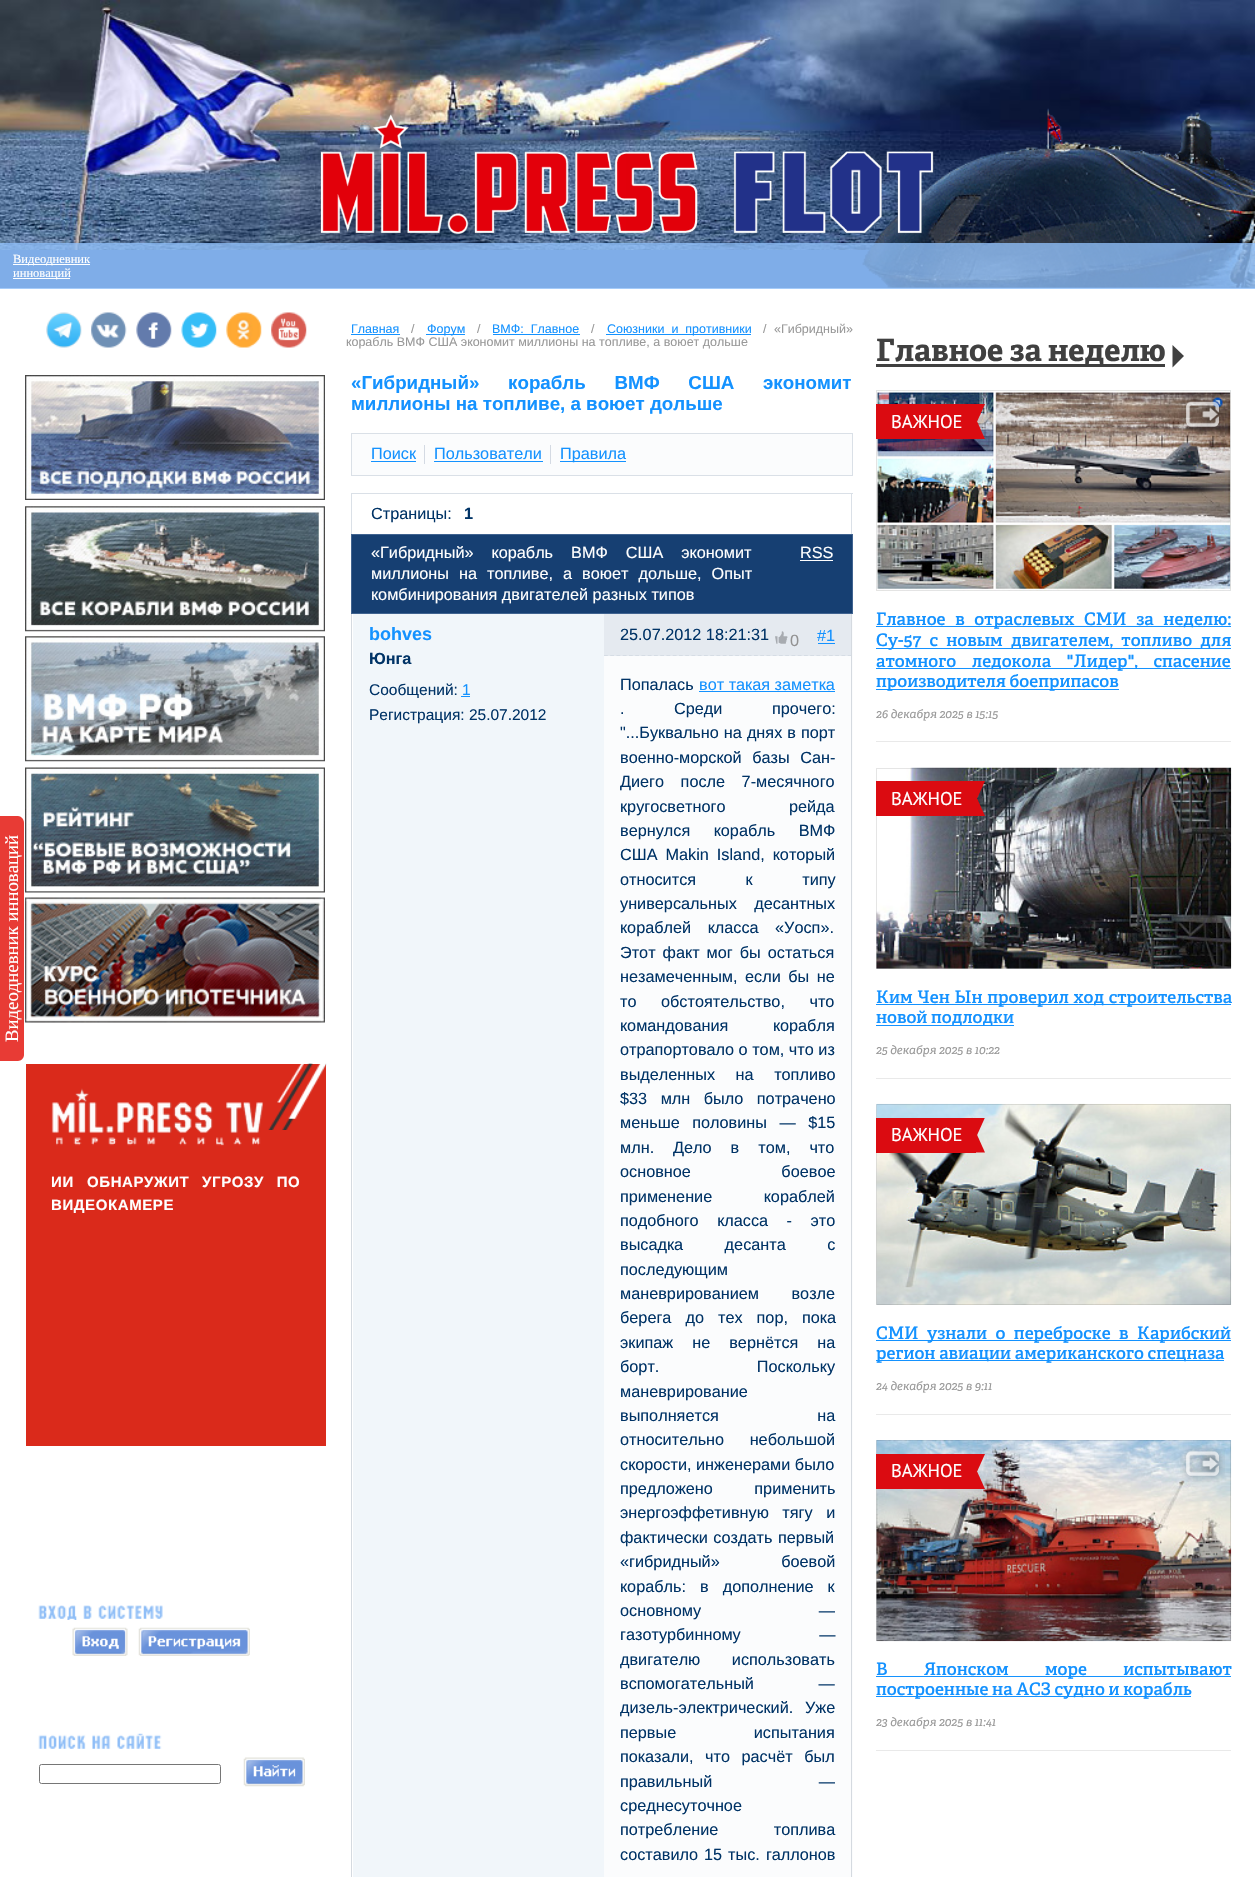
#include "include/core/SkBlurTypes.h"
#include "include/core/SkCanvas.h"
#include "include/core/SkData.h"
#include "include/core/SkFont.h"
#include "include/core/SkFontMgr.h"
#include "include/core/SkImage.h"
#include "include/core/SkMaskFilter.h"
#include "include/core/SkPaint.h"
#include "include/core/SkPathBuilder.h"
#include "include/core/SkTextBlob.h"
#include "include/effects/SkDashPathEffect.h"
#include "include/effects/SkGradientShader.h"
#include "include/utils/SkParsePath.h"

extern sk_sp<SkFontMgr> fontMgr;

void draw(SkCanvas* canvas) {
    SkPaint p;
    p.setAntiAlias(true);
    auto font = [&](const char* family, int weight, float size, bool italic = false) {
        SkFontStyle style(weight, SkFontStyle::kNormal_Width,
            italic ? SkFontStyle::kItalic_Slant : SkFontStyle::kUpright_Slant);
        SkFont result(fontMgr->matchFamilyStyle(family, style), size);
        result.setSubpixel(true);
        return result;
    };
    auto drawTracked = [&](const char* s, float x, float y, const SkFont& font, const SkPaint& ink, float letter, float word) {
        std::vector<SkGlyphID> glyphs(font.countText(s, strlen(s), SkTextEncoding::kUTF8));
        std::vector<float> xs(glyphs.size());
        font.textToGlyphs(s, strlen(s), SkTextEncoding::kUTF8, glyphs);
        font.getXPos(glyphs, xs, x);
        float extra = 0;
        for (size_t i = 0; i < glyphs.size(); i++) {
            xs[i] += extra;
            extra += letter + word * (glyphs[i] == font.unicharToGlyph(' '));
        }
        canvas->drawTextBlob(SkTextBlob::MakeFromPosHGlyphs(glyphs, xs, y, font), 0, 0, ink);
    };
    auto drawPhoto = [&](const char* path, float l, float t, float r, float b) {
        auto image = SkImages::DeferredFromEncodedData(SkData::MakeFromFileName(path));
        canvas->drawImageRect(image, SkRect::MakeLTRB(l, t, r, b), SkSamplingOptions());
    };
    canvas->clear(0xFFFFFFFF);
    p.setColor(0xFF4169A6);
    canvas->drawRect(SkRect::MakeLTRB(0, 250, 1255, 288), p);
    drawPhoto("media/1.png", 0, 0, 1255, 250);
    drawPhoto("media/2.png", 862, 108, 1255, 288);
    drawPhoto("media/3.png", 320, 114, 934, 234);
    p.setColor(0xCC8EBEF8);
    canvas->drawRect(SkRect::MakeLTRB(0, 243, 1255, 289), p);
    p.setColor(0xFFFFFFFF);
    canvas->drawRect(SkRect::MakeLTRB(13, 264, 90, 265), p);
    auto font1 = font("Liberation Serif", 400, 12.5f);
    canvas->drawString("Видеодневник", 13, 263, font1, p);
    canvas->drawRect(SkRect::MakeLTRB(13, 278, 70, 279), p);
    canvas->drawString("инноваций", 13, 277, font1, p);
    drawPhoto("media/4.png", 46, 312, 82, 348);
    drawPhoto("media/5.png", 91, 312, 127, 348);
    drawPhoto("media/6.png", 136, 312, 172, 348);
    drawPhoto("media/7.png", 181, 312, 217, 348);
    drawPhoto("media/8.png", 226, 312, 262, 348);
    drawPhoto("media/9.png", 271, 312, 307, 348);
    drawPhoto("media/10.png", 25, 375, 325, 500);
    drawPhoto("media/11.png", 25, 506, 325, 632);
    drawPhoto("media/12.png", 25, 636, 325, 762);
    drawPhoto("media/13.png", 25, 767, 325, 893);
    drawPhoto("media/14.png", 25, 897, 325, 1023);
    p.setColor(0xFFDA2A1B);
    canvas->drawRect(SkRect::MakeLTRB(26, 1064, 326, 1446), p);
    drawPhoto("media/15.png", 268, 1063, 327, 1130);
    drawPhoto("media/16.png", 51, 1088, 264, 1146);
    auto font2 = font("Liberation Sans", 700, 15);
    p.setColor(0xFFFFFFFF);
    drawTracked("ИИ", 51, 1187, font2, p, 0.6f, 0);
    drawTracked("ОБНАРУЖИТ УГРОЗУ ПО", 87, 1187, font2, p, 0.6f, 8);
    drawTracked("ВИДЕОКАМЕРЕ", 51, 1210, font2, p, 0.6f, 0);
    drawPhoto("media/17.png", 38, 1605, 163, 1620);
    drawPhoto("media/18.png", 72, 1627, 128, 1656);
    drawPhoto("media/19.png", 138, 1627, 250, 1656);
    drawPhoto("media/20.png", 38, 1733, 162, 1749);
    p.setStyle(SkPaint::kStroke_Style);
    p.setStrokeWidth(1);
    p.setColor(0xFF767676);
    canvas->drawRoundRect(SkRect::MakeLTRB(39.5f, 1764.5f, 220.5f, 1783.5f), 2, 2, p);
    drawPhoto("media/21.png", 243, 1757, 305, 1787);
    auto font3 = font("Liberation Sans", 400, 12.5f);
    p.setStyle(SkPaint::kFill_Style);
    p.setColor(0xFF1492FF);
    canvas->drawString("Главная", 351, 333, font3, p);
    canvas->drawRect(SkRect::MakeLTRB(351, 334, 400, 335), p);
    p.setColor(0xFF999999);
    canvas->drawString("/", 411, 333, font3, p);
    p.setColor(0xFF1492FF);
    canvas->drawRect(SkRect::MakeLTRB(426, 334, 465, 335), p);
    canvas->drawString("Форум", 427, 333, font3, p);
    p.setColor(0xFF999999);
    canvas->drawString("/", 477, 333, font3, p);
    p.setColor(0xFF1492FF);
    drawTracked("ВМФ: Главное", 492, 333, font3, p, 0, 3.5f);
    canvas->drawRect(SkRect::MakeLTRB(493, 334, 580, 335), p);
    p.setColor(0xFF999999);
    canvas->drawString("/", 591, 333, font3, p);
    p.setColor(0xFF1492FF);
    canvas->drawRect(SkRect::MakeLTRB(606, 334, 751, 335), p);
    drawTracked("Союзники и противники", 607, 333, font3, p, 0, 3.5f);
    p.setColor(0xFF999999);
    {
        const struct { const char* s; float x, y; } items[] = {
            {"/", 763, 333},
            {"«Гибридный»", 774, 333},
            {"корабль ВМФ США экономит миллионы на топливе, а воюет дольше", 346, 346},
        };
        for (auto [s, x, y] : items) {
            canvas->drawString(s, x, y, font3, p);
        }
    }
    auto font4 = font("Liberation Sans", 700, 18.75f);
    p.setColor(0xFF1492FF);
    drawTracked("«Гибридный» корабль ВМФ США экономит", 351, 389, font4, p, 0, 23.5f);
    canvas->drawString("миллионы на топливе, а воюет дольше", 351, 410, font4, p);
    p.setColor(0xFFFBFCFD);
    canvas->drawRect(SkRect::MakeLTRB(351.5f, 433.5f, 852.5f, 475.5f), p);
    p.setStyle(SkPaint::kStroke_Style);
    p.setColor(0xFFDAE0E7);
    canvas->drawRect(SkRect::MakeLTRB(351.5f, 433.5f, 852.5f, 475.5f), p);
    auto font5 = font("Liberation Sans", 400, 16.25f);
    p.setStyle(SkPaint::kFill_Style);
    p.setColor(0xFF1492FF);
    canvas->drawString("Поиск", 371, 459, font5, p);
    p.setColor(0xFFD4DAE3);
    canvas->drawRect(SkRect::MakeLTRB(424, 445, 425, 464), p);
    p.setColor(0xFF1492FF);
    canvas->drawRect(SkRect::MakeLTRB(371, 461, 416, 462), p);
    canvas->drawString("Пользователи", 434, 459, font5, p);
    {
        const struct { float l, t, r, b; SkColor color; } items[] = {
            {550, 445, 551, 464, 0xFFD4DAE3},
            {434, 461, 543, 462, 0xFF1492FF},
            {560, 461, 626, 462, 0xFF1492FF},
        };
        for (auto [l, t, r, b, color] : items) {
            p.setColor(color);
            canvas->drawRect(SkRect::MakeLTRB(l, t, r, b), p);
        }
    }
    canvas->drawString("Правила", 560, 459, font5, p);
    {
        const struct { float l, t, r, b; SkColor color; } items[] = {
            {351, 493, 853, 494, 0xFFDAE0E7},
            {851, 493, 852, 534, 0xFFDAE0E7},
            {351, 493, 352, 534, 0xFFDAE0E7},
        };
        for (auto [l, t, r, b, color] : items) {
            p.setColor(color);
            canvas->drawRect(SkRect::MakeLTRB(l, t, r, b), p);
        }
    }
    p.setColor(0xFF003366);
    canvas->drawString("Страницы:", 371, 519, font5, p);
    auto font6 = font("Liberation Sans", 700, 16.25f);
    canvas->drawString("1", 464, 519, font6, p);
    p.setColor(0xFF163F72);
    canvas->drawRect(SkRect::MakeLTRB(351.5f, 534.5f, 852.5f, 613.5f), p);
    p.setStyle(SkPaint::kStroke_Style);
    p.setColor(0xFF406390);
    canvas->drawRect(SkRect::MakeLTRB(351.5f, 534.5f, 852.5f, 613.5f), p);
    p.setStyle(SkPaint::kFill_Style);
    p.setColor(0xFFFFFFFF);
    drawTracked("«Гибридный» корабль ВМФ США экономит", 371, 558, font5, p, 0, 13.5f);
    drawTracked("миллионы на топливе, а воюет дольше, Опыт", 371, 579, font5, p, 0, 5.5f);
    canvas->drawString("комбинирования двигателей разных типов", 371, 600, font5, p);
    canvas->drawString("RSS", 800, 558, font5, p);
    {
        const struct { float l, t, r, b; SkColor color; } items[] = {
            {800, 560, 833, 561, 0xFFFFFFFF},
            {351, 614, 352, 1877, 0xFFD5DAE0},
            {353, 614, 604, 1877, 0xFFF1F6FA},
        };
        for (auto [l, t, r, b, color] : items) {
            p.setColor(color);
            canvas->drawRect(SkRect::MakeLTRB(l, t, r, b), p);
        }
    }
    auto font7 = font("Liberation Sans", 700, 18);
    p.setColor(0xFF1492FF);
    canvas->drawString("bohves", 369, 640, font7, p);
    p.setColor(0xFF003366);
    canvas->drawString("Юнга", 369, 664, font6, p);
    auto font8 = font("Liberation Sans", 400, 15.5f);
    canvas->drawString("Сообщений:", 369, 695, font8, p);
    p.setColor(0xFF1492FF);
    canvas->drawString("1", 462, 695, font8, p);
    canvas->drawRect(SkRect::MakeLTRB(461, 696, 470, 697), p);
    p.setColor(0xFF003366);
    canvas->drawString("Регистрация: 25.07.2012", 369, 720, font8, p);
    {
        const struct { float l, t, r, b; SkColor color; } items[] = {
            {604, 614, 853, 1877, 0xFFFBFCFD},
            {851, 614, 852, 1877, 0xFFD5DAE0},
            {604, 614, 851, 656, 0xFFE5EAF0},
        };
        for (auto [l, t, r, b, color] : items) {
            p.setColor(color);
            canvas->drawRect(SkRect::MakeLTRB(l, t, r, b), p);
        }
    }
    p.setStyle(SkPaint::kStroke_Style);
    p.setStrokeWidth(1.2f);
    p.setColor(0xFFD6DDE5);
    p.setPathEffect(SkDashPathEffect::Make({{3.75f, 2.5f}}, 0));
    canvas->drawPath(SkPathBuilder().moveTo(604, 655.5f).lineTo(851, 655.5f).detach(), p);
    p.setPathEffect(nullptr);
    p.setStyle(SkPaint::kFill_Style);
    p.setColor(0xFF003366);
    canvas->drawString("25.07.2012 18:21:31", 620, 640, font5, p);
    drawPhoto("media/22.png", 775, 631, 788, 644);
    p.setColor(0xFF929292);
    canvas->drawString("0", 790, 646, font5, p);
    p.setColor(0xFF1492FF);
    canvas->drawString("#1", 817, 641, font5, p);
    canvas->drawRect(SkRect::MakeLTRB(818, 643, 835, 644), p);
    p.setColor(0xFF003366);
    canvas->drawString("Попалась", 620, 690, font5, p);
    p.setColor(0xFF1492FF);
    canvas->drawString("вот такая заметка", 699, 690, font5, p);
    canvas->drawRect(SkRect::MakeLTRB(699, 691, 835, 692), p);
    p.setColor(0xFF003366);
    canvas->drawString(".", 620, 714, font5, p);
    drawTracked("Среди прочего:", 674, 714, font5, p, 0, 45);
    drawTracked("\"...Буквально на днях в порт", 620, 738, font5, p, 0, 0.5f);
    drawTracked("военно-морской базы Сан-", 620, 763, font5, p, 0, 6);
    drawTracked("Диего после 7-месячного", 620, 787, font5, p, 0, 12);
    drawTracked("кругосветного рейда", 620, 812, font5, p, 0, 59);
    drawTracked("вернулся корабль ВМФ", 620, 836, font5, p, 0, 19);
    drawTracked("США Makin Island, который", 620, 860, font5, p, 0, 3.5f);
    drawTracked("относится к типу", 620, 885, font5, p, 0, 45);
    drawTracked("универсальных десантных", 620, 909, font5, p, 0, 13);
    drawTracked("кораблей класса «Уосп».", 620, 933, font5, p, 0, 12);
    drawTracked("Этот факт мог бы остаться", 620, 958, font5, p, 0, 2.5f);
    drawTracked("незамеченным, если бы не", 620, 982, font5, p, 0, 3);
    drawTracked("то обстоятельство, что", 620, 1007, font5, p, 0, 20);
    drawTracked("командования корабля", 620, 1031, font5, p, 0, 40);
    canvas->drawString("отрапортовало о том, что из", 620, 1055, font5, p);
    drawTracked("выделенных на топливо", 620, 1080, font5, p, 0, 16);
    drawTracked("$33 млн было потрачено", 620, 1104, font5, p, 0, 9);
    drawTracked("меньше половины — $15", 620, 1128, font5, p, 0, 8);
    canvas->drawString("млн.", 620, 1153, font5, p);
    drawTracked("Дело в том, что", 673, 1153, font5, p, 0, 14.5f);
    drawTracked("основное боевое", 620, 1177, font5, p, 0, 86);
    drawTracked("применение кораблей", 620, 1202, font5, p, 0, 47);
    drawTracked("подобного класса - это", 620, 1226, font5, p, 0, 14);
    drawTracked("высадка десанта с", 620, 1250, font5, p, 0, 37);
    canvas->drawString("последующим", 620, 1275, font5, p);
    drawTracked("маневрированием возле", 620, 1299, font5, p, 0, 28);
    drawTracked("берега до тех пор, пока", 620, 1323, font5, p, 0, 9.5f);
    drawTracked("экипаж не вернётся на", 620, 1348, font5, p, 0, 14.5f);
    drawTracked("борт. Поскольку", 620, 1372, font5, p, 0, 93);
    canvas->drawString("маневрирование", 620, 1397, font5, p);
    drawTracked("выполняется на", 620, 1421, font5, p, 0, 94);
    drawTracked("относительно небольшой", 620, 1445, font5, p, 0, 21);
    canvas->drawString("скорости, инженерами было", 620, 1470, font5, p);
    drawTracked("предложено применить", 620, 1494, font5, p, 0, 37);
    drawTracked("энергоэффетивную тягу и", 620, 1518, font5, p, 0, 9);
    drawTracked("фактически создать первый", 620, 1543, font5, p, 0, 1);
    drawTracked("«гибридный» боевой", 620, 1567, font5, p, 0, 57);
    drawTracked("корабль: в дополнение к", 620, 1592, font5, p, 0, 9.5f);
    drawTracked("основному —", 620, 1616, font5, p, 0, 113);
    drawTracked("газотурбинному —", 620, 1640, font5, p, 0, 74);
    drawTracked("двигателю использовать", 620, 1665, font5, p, 0, 27);
    drawTracked("вспомогательный —", 620, 1689, font5, p, 0, 60);
    canvas->drawString("дизель-электрический.", 620, 1713, font5, p);
    canvas->drawString("Уже", 805, 1713, font5, p);
    drawTracked("первые испытания", 620, 1738, font5, p, 0, 73);
    drawTracked("показали, что расчёт был", 620, 1762, font5, p, 0, 7);
    drawTracked("правильный —", 620, 1787, font5, p, 0, 102);
    canvas->drawString("среднесуточное", 620, 1811, font5, p);
    drawTracked("потребление топлива", 620, 1835, font5, p, 0, 51);
    drawTracked("составило 15 тыс. галлонов", 620, 1860, font5, p, 0, 1.5f);
    p.setColor(0xFF404040);
    canvas->drawRect(SkRect::MakeLTRB(876, 364, 1165, 367), p);
    auto font9 = font("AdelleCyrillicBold", 700, 30.9f);
    canvas->drawString("Главное за неделю", 876, 361, font9, p);
    canvas->drawPath(SkPathBuilder().moveTo(1172.5f, 367.5f).lineTo(1172.5f, 345).lineTo(1184, 356).close().detach(), p);
    p.setColor(0xFFE9E9E9);
    canvas->drawRect(SkRect::MakeLTRB(876, 741, 1231, 742), p);
    drawPhoto("media/23.png", 876, 390, 1231, 591);
    p.setStyle(SkPaint::kStroke_Style);
    p.setStrokeWidth(1);
    p.setColor(0x1A000000);
    canvas->drawRect(SkRect::MakeLTRB(876.5f, 390.5f, 1230.5f, 590.5f), p);
    p.setStyle(SkPaint::kFill_Style);
    p.setColor(0xFFDB0B11);
    canvas->drawRect(SkRect::MakeLTRB(876, 404, 976, 439), p);
    auto font10 = font("PT Sans", 400, 18.5f);
    p.setColor(0xFFFFFFFF);
    canvas->drawString("ВАЖНОЕ", 891, 428, font10, p);
    canvas->save();
    canvas->clipRect(SkRect::MakeLTRB(976, 404, 985, 421));
    p.setColor(0xFFDB0B11);
    canvas->drawPath(SkPathBuilder().moveTo(967.5f, 404).lineTo(985, 404).lineTo(976, 424).close().detach(), p);
    canvas->restore();
    canvas->save();
    canvas->clipRect(SkRect::MakeLTRB(976, 421, 985, 439));
    canvas->drawPath(SkPathBuilder().moveTo(985, 439).lineTo(967.5f, 439).lineTo(976, 419).close().detach(), p);
    canvas->restore();
    drawPhoto("media/24.png", 1181, 396, 1224, 432);
    p.setColor(0xFF1492FF);
    canvas->drawRect(SkRect::MakeLTRB(876, 626, 1231, 627), p);
    auto font11 = font("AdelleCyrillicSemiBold", 600, 17.25f);
    drawTracked("Главное в отраслевых СМИ за неделю:", 876, 625, font11, p, 0, 6);
    canvas->drawRect(SkRect::MakeLTRB(876, 648, 1231, 649), p);
    drawTracked("Су-57 с новым двигателем, топливо для", 876, 646, font11, p, 0, 4.5f);
    canvas->drawRect(SkRect::MakeLTRB(876, 668, 1231, 669), p);
    drawTracked("атомного ледокола \"Лидер\", спасение", 876, 667, font11, p, 0, 12);
    canvas->drawRect(SkRect::MakeLTRB(876, 689, 1119, 690), p);
    canvas->drawString("производителя боеприпасов", 876, 687, font11, p);
    auto font12 = font("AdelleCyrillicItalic", 400, 11.9f, true);
    p.setColor(0xFF999999);
    canvas->drawString("26 декабря 2025 в 15:15", 876, 718, font12, p);
    p.setColor(0xFFE9E9E9);
    canvas->drawRect(SkRect::MakeLTRB(876, 1078, 1231, 1079), p);
    drawPhoto("media/25.png", 876, 767, 1232, 969);
    p.setStyle(SkPaint::kStroke_Style);
    p.setColor(0x1A000000);
    canvas->drawRect(SkRect::MakeLTRB(876.5f, 768.5f, 1230.5f, 968.5f), p);
    p.setStyle(SkPaint::kFill_Style);
    p.setColor(0xFFDB0B11);
    canvas->drawRect(SkRect::MakeLTRB(876, 781, 976, 816), p);
    p.setColor(0xFFFFFFFF);
    canvas->drawString("ВАЖНОЕ", 891, 805, font10, p);
    canvas->save();
    canvas->clipRect(SkRect::MakeLTRB(976, 781, 985, 799));
    p.setColor(0xFFDB0B11);
    canvas->drawPath(SkPathBuilder().moveTo(967.5f, 781).lineTo(985, 781).lineTo(976, 801).close().detach(), p);
    canvas->restore();
    canvas->save();
    canvas->clipRect(SkRect::MakeLTRB(976, 799, 985, 816));
    canvas->drawPath(SkPathBuilder().moveTo(985, 816).lineTo(967.5f, 816).lineTo(976, 796).close().detach(), p);
    canvas->restore();
    p.setColor(0xFF1492FF);
    canvas->drawRect(SkRect::MakeLTRB(876, 1004, 1231, 1005), p);
    drawTracked("Ким Чен Ын проверил ход строительства", 876, 1003, font11, p, 0, 1);
    canvas->drawRect(SkRect::MakeLTRB(876, 1025, 1014, 1026), p);
    canvas->drawString("новой подлодки", 876, 1023, font11, p);
    p.setColor(0xFF999999);
    canvas->drawString("25 декабря 2025 в 10:22", 876, 1054, font12, p);
    p.setColor(0xFFE9E9E9);
    canvas->drawRect(SkRect::MakeLTRB(876, 1414, 1231, 1415), p);
    drawPhoto("media/26.png", 876, 1103, 1232, 1305);
    p.setStyle(SkPaint::kStroke_Style);
    p.setColor(0x1A000000);
    canvas->drawRect(SkRect::MakeLTRB(876.5f, 1104.5f, 1230.5f, 1304.5f), p);
    p.setStyle(SkPaint::kFill_Style);
    p.setColor(0xFFDB0B11);
    canvas->drawRect(SkRect::MakeLTRB(876, 1118, 976, 1153), p);
    p.setColor(0xFFFFFFFF);
    canvas->drawString("ВАЖНОЕ", 891, 1141, font10, p);
    canvas->save();
    canvas->clipRect(SkRect::MakeLTRB(976, 1118, 985, 1135));
    p.setColor(0xFFDB0B11);
    canvas->drawPath(SkPathBuilder().moveTo(967.5f, 1117.5f).lineTo(985, 1117.5f).lineTo(976, 1137.5f).close().detach(), p);
    canvas->restore();
    canvas->save();
    canvas->clipRect(SkRect::MakeLTRB(976, 1135, 985, 1153));
    canvas->drawPath(SkPathBuilder().moveTo(985, 1152.5f).lineTo(967.5f, 1152.5f).lineTo(976, 1132.5f).close().detach(), p);
    canvas->restore();
    p.setColor(0xFF1492FF);
    canvas->drawRect(SkRect::MakeLTRB(876, 1340, 1231, 1341), p);
    drawTracked("СМИ узнали о переброске в Карибский", 876, 1339, font11, p, 0, 4.75f);
    canvas->drawRect(SkRect::MakeLTRB(876, 1360, 1224, 1361), p);
    canvas->drawString("регион авиации американского спецназа", 876, 1359, font11, p);
    p.setColor(0xFF999999);
    canvas->drawString("24 декабря 2025 в 9:11", 876, 1390, font12, p);
    p.setColor(0xFFE9E9E9);
    canvas->drawRect(SkRect::MakeLTRB(876, 1750, 1231, 1751), p);
    drawPhoto("media/27.png", 876, 1440, 1232, 1642);
    p.setStyle(SkPaint::kStroke_Style);
    p.setColor(0x1A000000);
    canvas->drawRect(SkRect::MakeLTRB(876.5f, 1440.5f, 1230.5f, 1640.5f), p);
    p.setStyle(SkPaint::kFill_Style);
    p.setColor(0xFFDB0B11);
    canvas->drawRect(SkRect::MakeLTRB(876, 1454, 976, 1489), p);
    p.setColor(0xFFFFFFFF);
    canvas->drawString("ВАЖНОЕ", 891, 1477, font10, p);
    canvas->save();
    canvas->clipRect(SkRect::MakeLTRB(976, 1454, 985, 1471));
    p.setColor(0xFFDB0B11);
    canvas->drawPath(SkPathBuilder().moveTo(967.5f, 1454).lineTo(985, 1454).lineTo(976, 1474).close().detach(), p);
    canvas->restore();
    canvas->save();
    canvas->clipRect(SkRect::MakeLTRB(976, 1471, 985, 1489));
    canvas->drawPath(SkPathBuilder().moveTo(985, 1489).lineTo(967.5f, 1489).lineTo(976, 1469).close().detach(), p);
    canvas->restore();
    drawPhoto("media/28.png", 1180, 1445, 1225, 1482);
    p.setColor(0xFF1492FF);
    canvas->drawRect(SkRect::MakeLTRB(876, 1676, 1231, 1677), p);
    drawTracked("В Японском море испытывают", 876, 1675, font11, p, 0, 32.5f);
    canvas->drawRect(SkRect::MakeLTRB(876, 1696, 1191, 1697), p);
    canvas->drawString("построенные на АСЗ судно и корабль", 876, 1695, font11, p);
    p.setColor(0xFF999999);
    canvas->drawString("23 декабря 2025 в 11:41", 876, 1726, font12, p);
    p.setColor(0xFFE83B35);
    canvas->drawPath(SkPathBuilder().moveTo(0, 1061).lineTo(0, 816).lineTo(18, 816).cubicTo(21, 816, 24, 819, 24, 823).lineTo(24, 1055).cubicTo(24, 1058, 21, 1061, 18, 1061).close().detach(), p);
    auto font13 = font("Liberation Serif", 400, 18.75f);
    p.setColor(0xFFFFFFFF);
    canvas->save();
    canvas->rotate(-90, 18, 1042);
    canvas->drawString("Видеодневник инноваций", 18, 1042, font13, p);
    canvas->restore();
}
